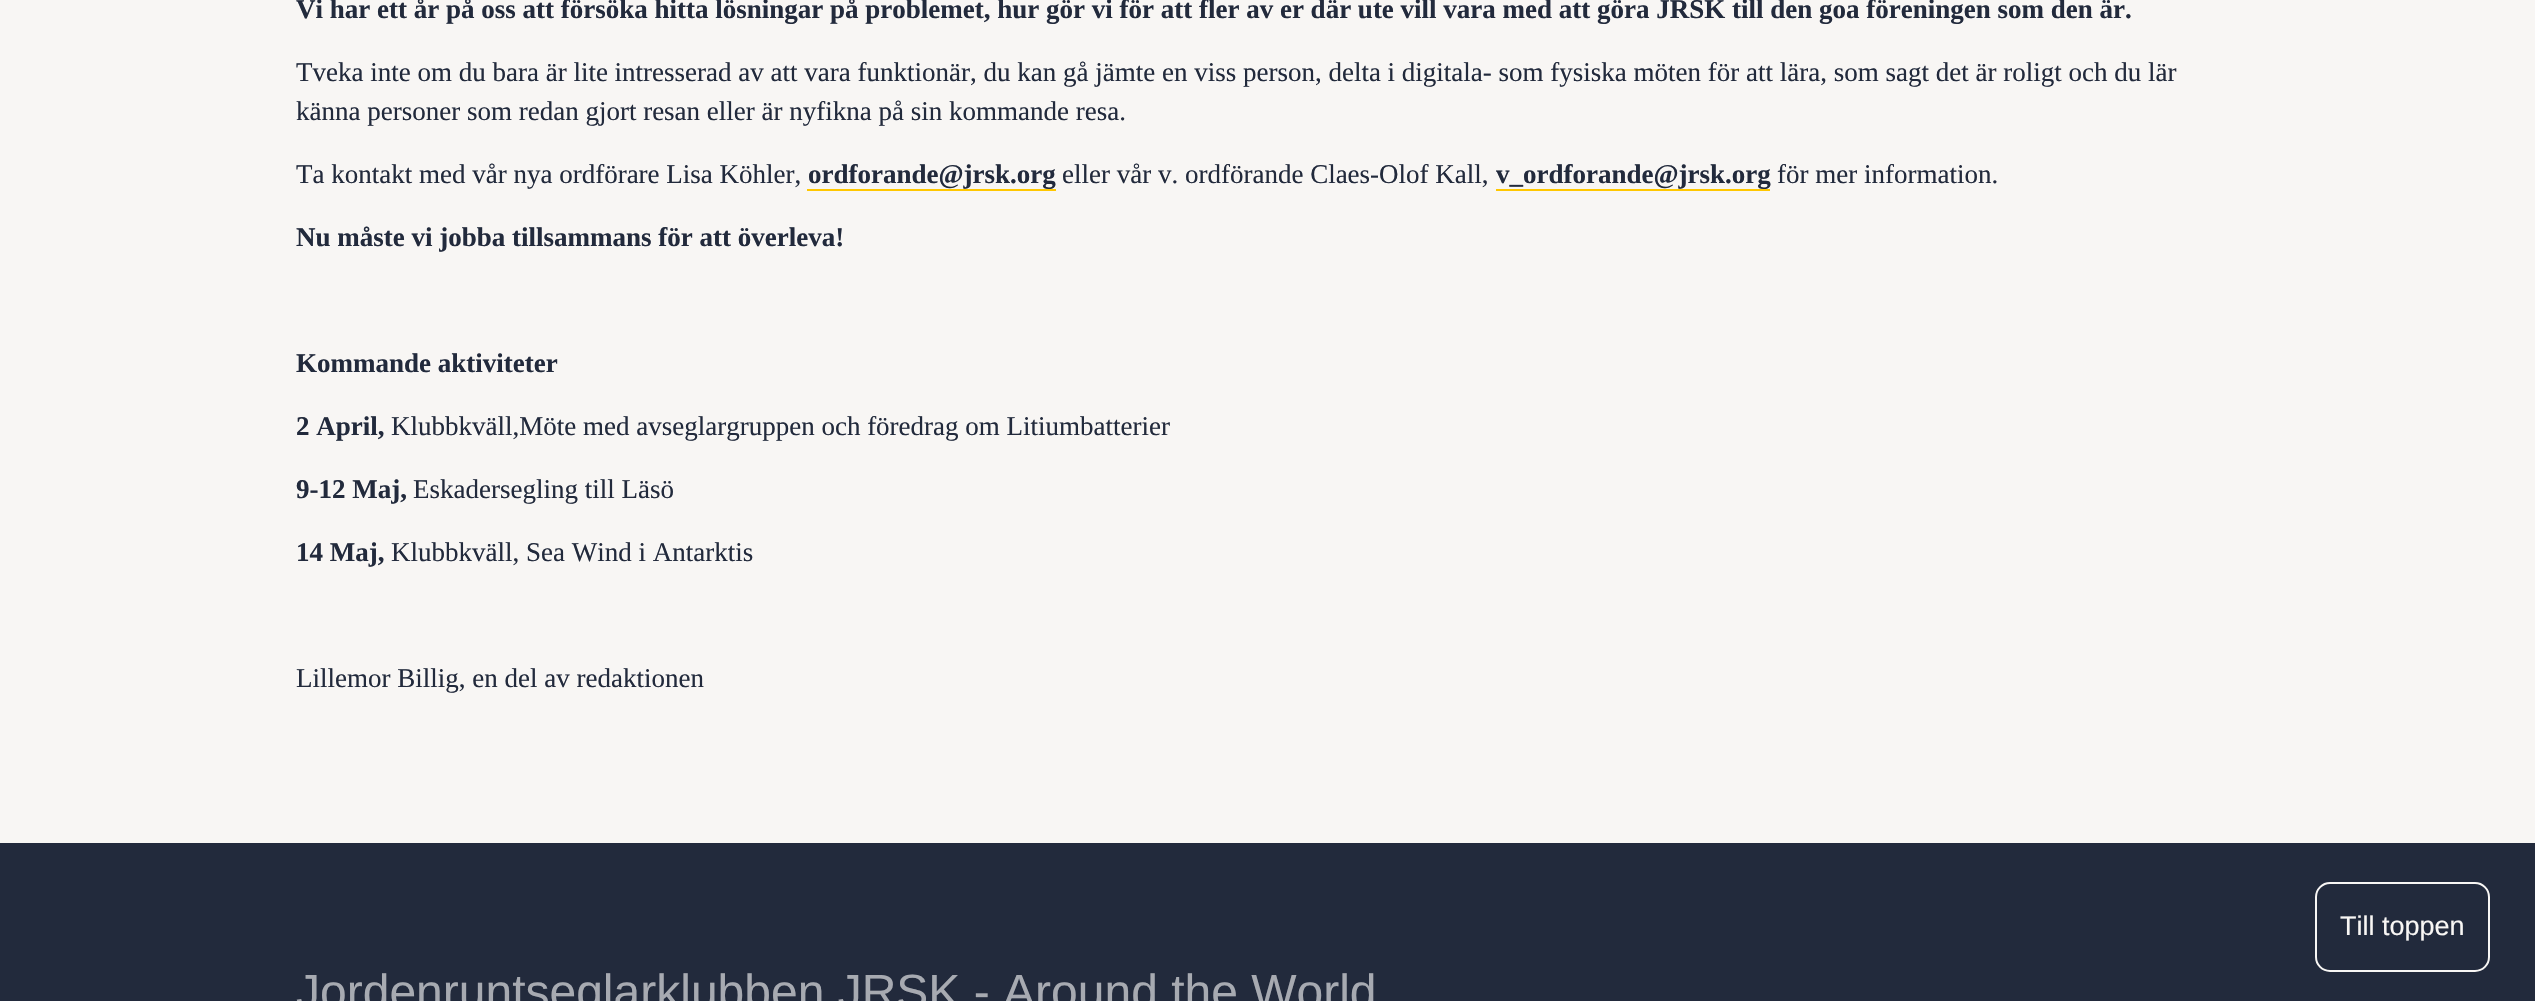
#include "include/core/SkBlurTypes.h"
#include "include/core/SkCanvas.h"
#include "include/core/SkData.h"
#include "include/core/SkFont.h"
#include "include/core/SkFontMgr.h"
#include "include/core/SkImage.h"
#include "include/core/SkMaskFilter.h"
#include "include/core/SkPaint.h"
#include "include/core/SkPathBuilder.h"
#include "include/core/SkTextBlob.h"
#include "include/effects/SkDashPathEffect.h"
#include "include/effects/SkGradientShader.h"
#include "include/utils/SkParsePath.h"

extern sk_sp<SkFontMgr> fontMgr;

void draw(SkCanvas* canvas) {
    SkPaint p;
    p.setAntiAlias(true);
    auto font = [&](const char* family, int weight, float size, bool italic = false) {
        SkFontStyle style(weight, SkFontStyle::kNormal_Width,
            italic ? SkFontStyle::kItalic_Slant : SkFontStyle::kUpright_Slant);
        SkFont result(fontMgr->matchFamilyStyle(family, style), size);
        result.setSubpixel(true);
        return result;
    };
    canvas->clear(0xFFF8F6F4);
    auto font1 = font("Liberation Serif", 700, 27);
    p.setColor(0xFF222A3C);
    canvas->drawString("Vi har ett år på oss att försöka hitta lösningar på problemet, hur gör vi för att fler av er där ute vill vara med att göra JRSK till den goa föreningen som den är.", 296, 18, font1, p);
    auto font2 = font("Liberation Serif", 400, 27);
    {
        const struct { const char* s; float x, y; } items[] = {
            {"Tveka inte om du bara är lite intresserad av att vara funktionär, du kan gå jämte en viss person, delta i digitala- som fysiska möten för att lära, som sagt det är roligt och du lär", 296, 81},
            {"känna personer som redan gjort resan eller är nyfikna på sin kommande resa.", 296, 120},
            {"Ta kontakt med vår nya ordförare Lisa Köhler,", 296, 183},
        };
        for (auto [s, x, y] : items) {
            canvas->drawString(s, x, y, font2, p);
        }
    }
    canvas->drawString("ordforande@jrsk.org", 808, 183, font1, p);
    p.setColor(0xFFFFC700);
    canvas->drawRect(SkRect::MakeLTRB(807, 189, 1056, 191), p);
    p.setColor(0xFF222A3C);
    canvas->drawString("eller vår v. ordförande Claes-Olof Kall,", 1062, 183, font2, p);
    canvas->drawString("v_ordforande@jrsk.org", 1496, 183, font1, p);
    p.setColor(0xFFFFC700);
    canvas->drawRect(SkRect::MakeLTRB(1496, 189, 1770, 191), p);
    p.setColor(0xFF222A3C);
    canvas->drawString("för mer information.", 1777, 183, font2, p);
    {
        const struct { const char* s; float x, y; } items[] = {
            {"Nu måste vi jobba tillsammans för att överleva!", 296, 246},
            {"Kommande aktiviteter", 296, 372},
            {"2 April,", 296, 435},
        };
        for (auto [s, x, y] : items) {
            canvas->drawString(s, x, y, font1, p);
        }
    }
    canvas->drawString("Klubbkväll,Möte med avseglargruppen och föredrag om Litiumbatterier", 391, 435, font2, p);
    canvas->drawString("9-12 Maj,", 296, 498, font1, p);
    canvas->drawString("Eskadersegling till Läsö", 413, 498, font2, p);
    canvas->drawString("14 Maj,", 296, 561, font1, p);
    canvas->drawString("Klubbkväll, Sea Wind i Antarktis", 391, 561, font2, p);
    canvas->drawString("Lillemor Billig, en del av redaktionen", 296, 687, font2, p);
    canvas->drawRect(SkRect::MakeLTRB(0, 843, 2535, 1001), p);
    p.setStyle(SkPaint::kStroke_Style);
    p.setStrokeWidth(2);
    p.setColor(0xFFF8F6F4);
    canvas->drawRoundRect(SkRect::MakeLTRB(2316, 883, 2489, 971), 14, 14, p);
    auto font3 = font("Liberation Sans", 400, 27);
    p.setStyle(SkPaint::kFill_Style);
    canvas->drawString("Till toppen", 2340, 935, font3, p);
    auto font4 = font("Liberation Sans", 400, 48);
    p.setColor(0xFFA7AAB1);
    canvas->drawString("Jordenruntseglarklubben JRSK - Around the World", 296, 1008, font4, p);
}
